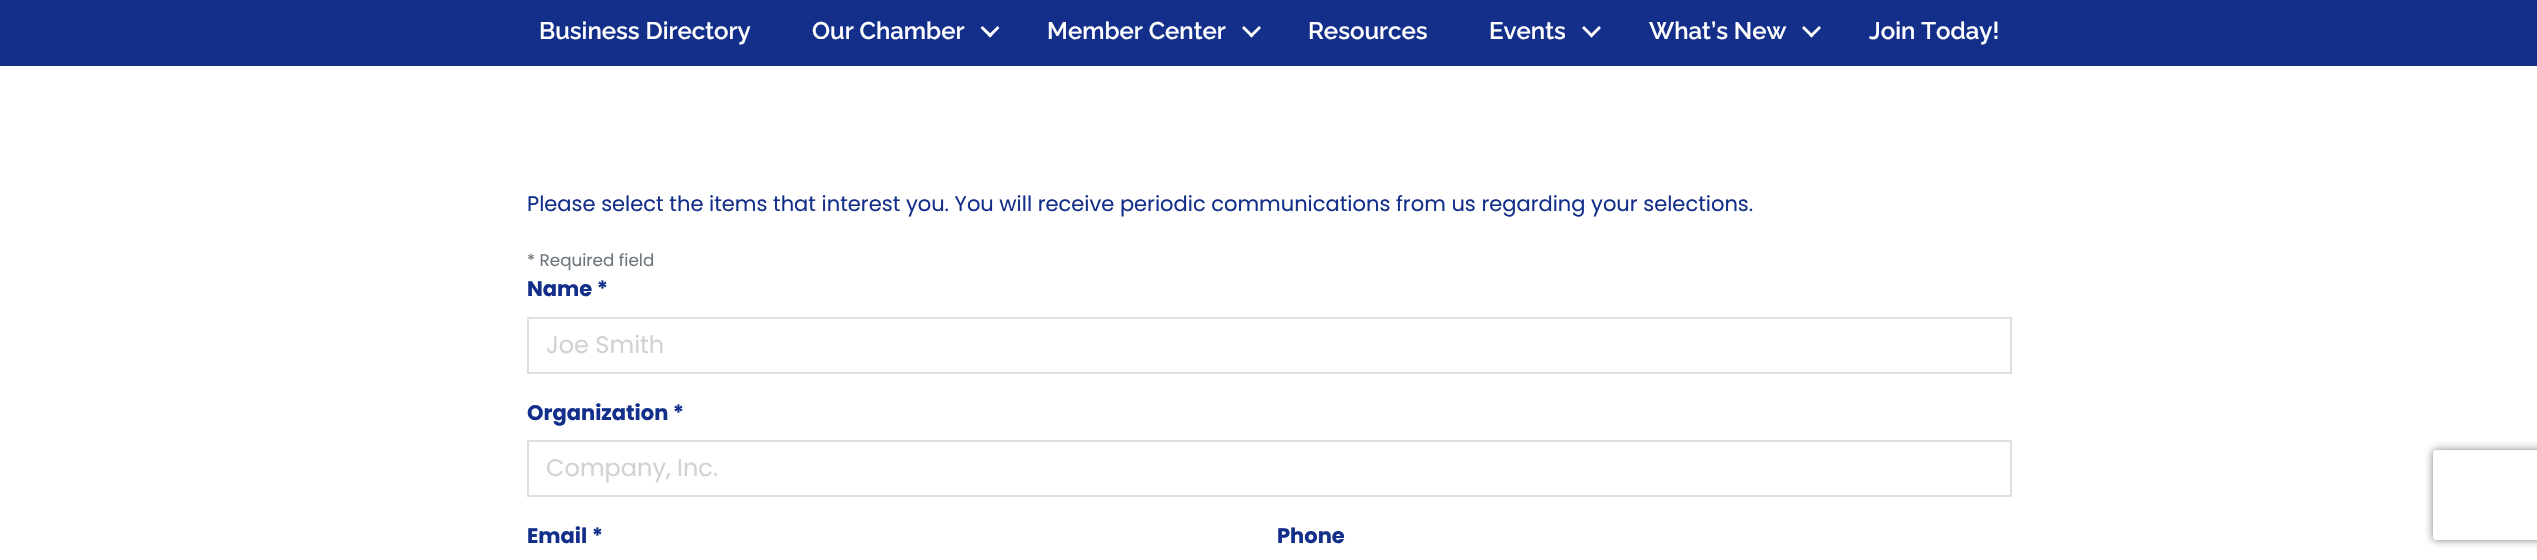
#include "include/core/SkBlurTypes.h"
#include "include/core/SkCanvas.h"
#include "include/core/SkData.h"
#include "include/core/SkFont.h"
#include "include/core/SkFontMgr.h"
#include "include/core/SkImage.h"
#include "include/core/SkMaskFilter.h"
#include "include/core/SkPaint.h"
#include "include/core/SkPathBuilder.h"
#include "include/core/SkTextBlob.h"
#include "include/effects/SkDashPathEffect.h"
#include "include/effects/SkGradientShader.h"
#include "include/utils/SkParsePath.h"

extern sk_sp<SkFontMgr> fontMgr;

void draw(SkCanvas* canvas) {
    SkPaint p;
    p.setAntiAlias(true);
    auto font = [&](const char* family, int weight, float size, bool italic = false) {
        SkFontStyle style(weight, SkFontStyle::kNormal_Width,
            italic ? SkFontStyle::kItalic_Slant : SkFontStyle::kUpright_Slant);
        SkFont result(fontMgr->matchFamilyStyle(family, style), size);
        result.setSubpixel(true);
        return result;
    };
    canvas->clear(0xFFFFFFFF);
    p.setColor(0xFF132F8A);
    canvas->drawRect(SkRect::MakeLTRB(0, 0, 2537, 66), p);
    auto font1 = font("Raleway", 100, 24);
    p.setColor(0xFFFFFFFF);
    canvas->drawString("Business Directory", 539, 39, font1, p);
    canvas->drawString("Our Chamber", 812, 39, font1, p);
    canvas->drawPath(SkPathBuilder().moveTo(997.5f, 26).lineTo(999.5f, 28).lineTo(990, 37.5f).lineTo(988, 35.5f).close().detach(), p);
    canvas->drawPath(SkPathBuilder().moveTo(982.5f, 26).lineTo(992.5f, 35.5f).lineTo(990, 37.5f).lineTo(980.5f, 28).close().detach(), p);
    canvas->drawString("Member Center", 1047, 39, font1, p);
    canvas->drawPath(SkPathBuilder().moveTo(1259, 26).lineTo(1261, 28).lineTo(1251.5f, 37.5f).lineTo(1249.5f, 35.5f).close().detach(), p);
    canvas->drawPath(SkPathBuilder().moveTo(1244, 26).lineTo(1253.5f, 35.5f).lineTo(1251.5f, 37.5f).lineTo(1242, 28).close().detach(), p);
    canvas->drawString("Resources", 1308, 39, font1, p);
    canvas->drawString("Events", 1489, 39, font1, p);
    canvas->drawPath(SkPathBuilder().moveTo(1599, 26).lineTo(1601, 28).lineTo(1591.5f, 37.5f).lineTo(1589.5f, 35.5f).close().detach(), p);
    canvas->drawPath(SkPathBuilder().moveTo(1584, 26).lineTo(1593.5f, 35.5f).lineTo(1591.5f, 37.5f).lineTo(1582, 28).close().detach(), p);
    canvas->drawString("What’s New", 1649, 39, font1, p);
    canvas->drawPath(SkPathBuilder().moveTo(1819, 26).lineTo(1821, 28).lineTo(1811.5f, 37.5f).lineTo(1809.5f, 35.5f).close().detach(), p);
    canvas->drawPath(SkPathBuilder().moveTo(1804, 26).lineTo(1813.5f, 35.5f).lineTo(1811.5f, 37.5f).lineTo(1802, 28).close().detach(), p);
    canvas->drawString("Join Today!", 1869, 39, font1, p);
    auto font2 = font("Poppins", 400, 21);
    p.setColor(0xFF132F8A);
    canvas->drawString("Please select the items that interest you. You will receive periodic communications from us regarding your selections.", 527, 211, font2, p);
    auto font3 = font("Poppins", 400, 16.75f);
    p.setColor(0xFF6C757D);
    canvas->drawString("* Required field", 527, 266, font3, p);
    auto font4 = font("Poppins", 700, 21);
    p.setColor(0xFF132F8A);
    canvas->drawString("Name *", 527, 296, font4, p);
    p.setStyle(SkPaint::kStroke_Style);
    p.setStrokeWidth(2);
    p.setColor(0xFFDFDFDF);
    canvas->drawRect(SkRect::MakeLTRB(528, 318, 2011, 373), p);
    auto font5 = font("Poppins", 400, 24);
    p.setStyle(SkPaint::kFill_Style);
    p.setColor(0xFFD2D2D2);
    canvas->drawString("Joe Smith", 546, 353, font5, p);
    p.setColor(0xFF132F8A);
    canvas->drawString("Organization *", 527, 420, font4, p);
    p.setStyle(SkPaint::kStroke_Style);
    p.setColor(0xFFDFDFDF);
    canvas->drawRect(SkRect::MakeLTRB(528, 441, 2011, 496), p);
    p.setStyle(SkPaint::kFill_Style);
    p.setColor(0xFFD2D2D2);
    canvas->drawString("Company, Inc.", 546, 476, font5, p);
    p.setColor(0xFF132F8A);
    canvas->drawString("Email *", 527, 543, font4, p);
    canvas->drawString("Phone", 1277, 543, font4, p);
    canvas->save();
    canvas->clipPath(SkPathBuilder(SkPathFillType::kEvenOdd).moveTo(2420, 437).lineTo(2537, 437).lineTo(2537, 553).lineTo(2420, 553).close().moveTo(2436, 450).lineTo(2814, 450).cubicTo(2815.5f, 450, 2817, 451.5f, 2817, 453).lineTo(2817, 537).cubicTo(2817, 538.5f, 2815.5f, 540, 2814, 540).lineTo(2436, 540).cubicTo(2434.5f, 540, 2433, 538.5f, 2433, 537).lineTo(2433, 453).cubicTo(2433, 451.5f, 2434.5f, 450, 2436, 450).close().detach(), true);
    p.setColor(0xFF808080);
    p.setMaskFilter(SkMaskFilter::MakeBlur(kNormal_SkBlurStyle, 4));
    canvas->drawRoundRect(SkRect::MakeLTRB(2433, 450, 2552, 540), 3, 3, p);
    p.setMaskFilter(nullptr);
    canvas->restore();
}
